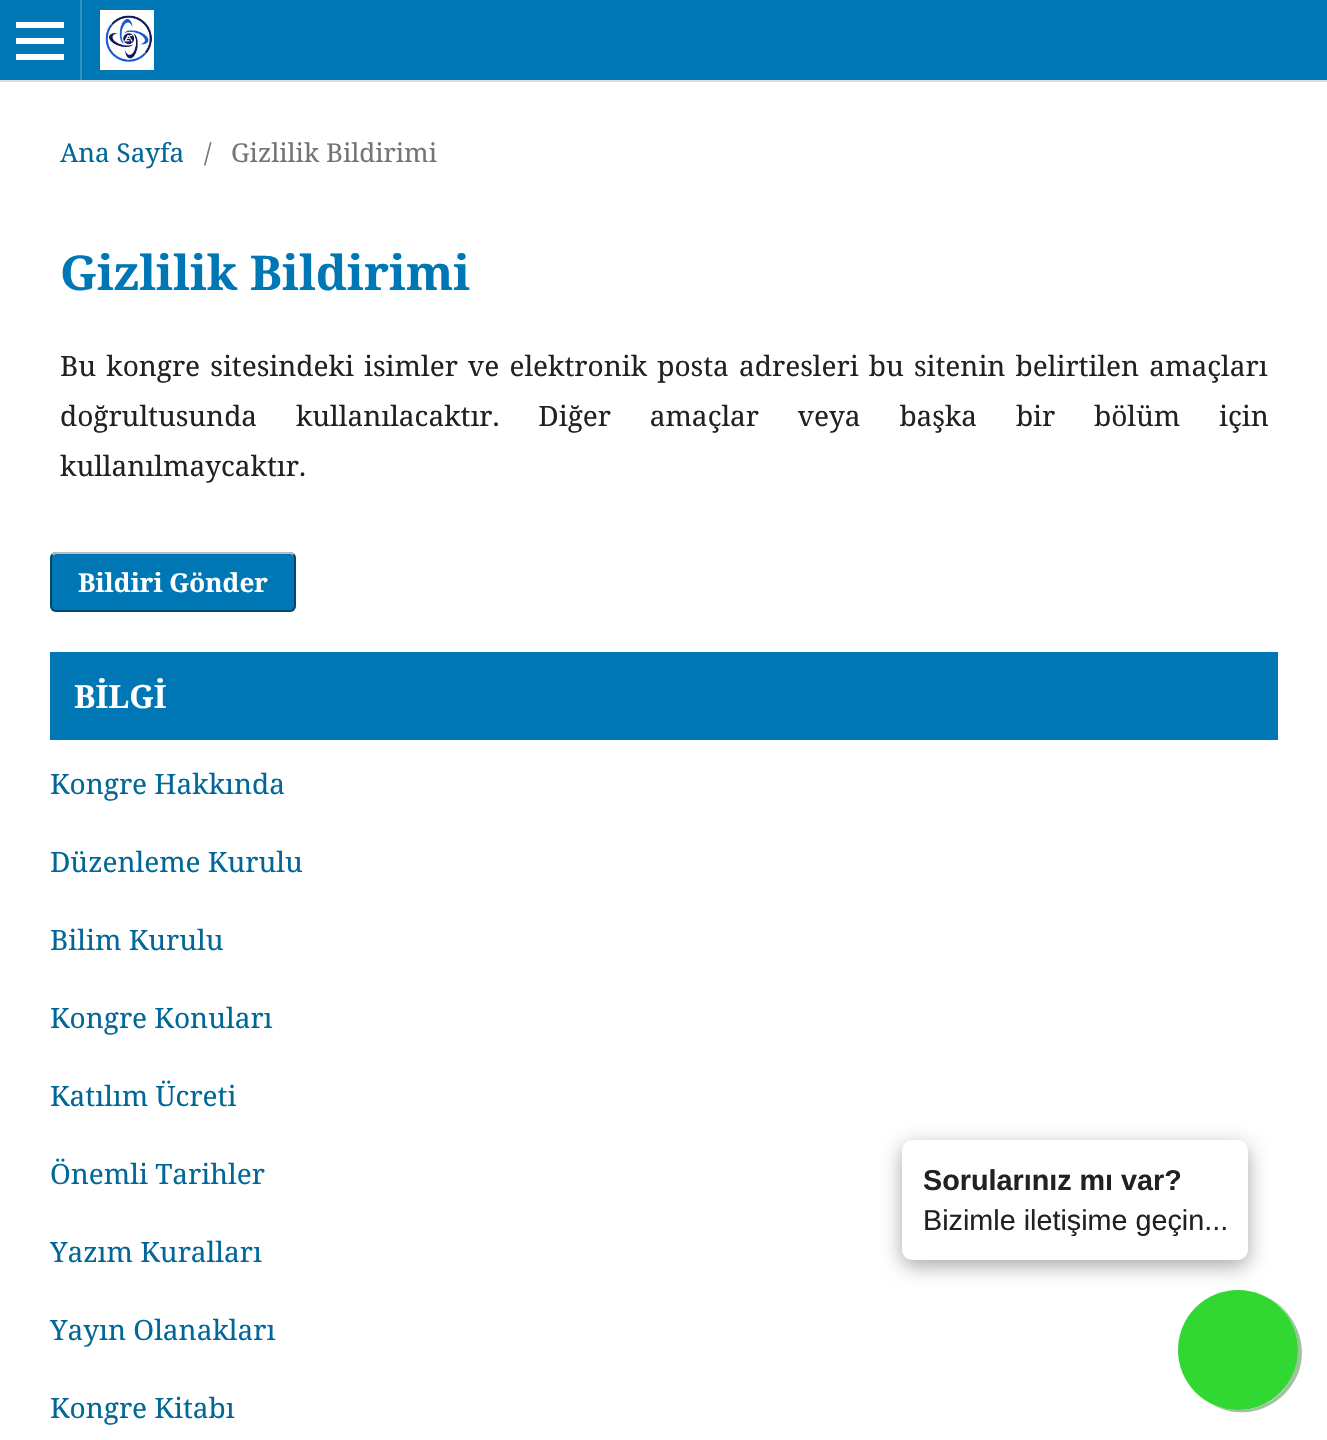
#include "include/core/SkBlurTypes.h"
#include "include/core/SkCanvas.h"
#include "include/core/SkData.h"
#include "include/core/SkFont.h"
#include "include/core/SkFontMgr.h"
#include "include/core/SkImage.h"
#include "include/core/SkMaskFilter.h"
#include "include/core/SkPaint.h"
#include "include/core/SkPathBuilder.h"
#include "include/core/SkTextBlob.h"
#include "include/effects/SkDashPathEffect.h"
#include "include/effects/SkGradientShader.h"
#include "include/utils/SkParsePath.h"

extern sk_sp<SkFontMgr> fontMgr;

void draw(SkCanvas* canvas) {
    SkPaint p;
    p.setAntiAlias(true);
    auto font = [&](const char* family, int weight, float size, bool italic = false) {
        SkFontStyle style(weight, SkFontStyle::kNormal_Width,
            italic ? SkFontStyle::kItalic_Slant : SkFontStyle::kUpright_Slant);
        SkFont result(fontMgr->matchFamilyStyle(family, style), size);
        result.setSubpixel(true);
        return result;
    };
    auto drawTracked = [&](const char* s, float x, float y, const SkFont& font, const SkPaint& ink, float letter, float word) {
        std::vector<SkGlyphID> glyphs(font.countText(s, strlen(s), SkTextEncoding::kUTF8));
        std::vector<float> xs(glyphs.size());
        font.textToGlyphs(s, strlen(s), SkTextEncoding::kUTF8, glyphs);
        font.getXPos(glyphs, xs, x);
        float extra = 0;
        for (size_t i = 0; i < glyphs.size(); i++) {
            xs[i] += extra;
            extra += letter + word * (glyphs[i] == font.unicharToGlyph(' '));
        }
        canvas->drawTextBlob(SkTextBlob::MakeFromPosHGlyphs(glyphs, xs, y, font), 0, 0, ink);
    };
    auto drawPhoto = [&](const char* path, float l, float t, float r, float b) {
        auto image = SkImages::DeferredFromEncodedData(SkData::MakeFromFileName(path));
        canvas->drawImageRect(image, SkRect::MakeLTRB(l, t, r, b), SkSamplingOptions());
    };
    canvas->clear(0xFFFFFFFF);
    {
        const struct { float l, t, r, b; SkColor color; } items[] = {
            {0, 0, 1327, 80, 0xFF0077B5},
            {0, 80, 1327, 82, 0xFFDDDDDD},
            {80, 0, 82, 80, 0xFF3392C4},
            {16, 54, 64, 60, 0xFFFFFFFF},
            {16, 22, 64, 28, 0xFFFFFFFF},
            {16, 38, 64, 44, 0xFFFFFFFF},
        };
        for (auto [l, t, r, b, color] : items) {
            p.setColor(color);
            canvas->drawRect(SkRect::MakeLTRB(l, t, r, b), p);
        }
    }
    drawPhoto("media/1.png", 100, 10, 154, 70);
    auto font1 = font("Noto Serif", 400, 26);
    p.setColor(0xFF006798);
    canvas->drawString("Ana Sayfa", 60, 162, font1, p);
    p.setColor(0xFF757575);
    canvas->drawString("/", 204, 162, font1, p);
    canvas->drawString("Gizlilik Bildirimi", 231, 162, font1, p);
    auto font2 = font("Noto Serif", 700, 48);
    p.setColor(0xFF0077B5);
    canvas->drawString("Gizlilik Bildirimi", 60, 290, font2, p);
    auto font3 = font("Noto Serif", 400, 28);
    p.setColor(0xFF212121);
    drawTracked("Bu kongre sitesindeki isimler ve elektronik posta adresleri bu sitenin belirtilen amaçları", 60, 376, font3, p, 0, 2.9f);
    drawTracked("doğrultusunda kullanılacaktır. Diğer amaçlar veya başka bir bölüm için", 60, 426, font3, p, 0, 31.5f);
    canvas->drawString("kullanılmaycaktır.", 60, 476, font3, p);
    p.setColor(0xFF0077B5);
    canvas->drawRoundRect(SkRect::MakeLTRB(50, 552, 296, 612), 6, 6, p);
    p.setStyle(SkPaint::kStroke_Style);
    p.setStrokeWidth(2);
    p.setColor(0xFFBBBBBB);
    canvas->drawPath(SkPathBuilder().moveTo(52.5f, 554.5f).lineTo(55.5f, 553).lineTo(290, 553).cubicTo(291.5f, 553, 292.5f, 553.5f, 293.5f, 554.5f).detach(), p);
    p.setColor(0x66000000);
    canvas->drawPath(SkPathBuilder().moveTo(293.5f, 554.5f).cubicTo(294.5f, 555.5f, 295, 556.5f, 295, 558).lineTo(295, 606).cubicTo(295, 607.5f, 294.5f, 608.5f, 293.5f, 609.5f).cubicTo(292.5f, 610.5f, 291.5f, 611, 290, 611).lineTo(56, 611).cubicTo(54.5f, 611, 53.5f, 610.5f, 52.5f, 609.5f).cubicTo(51.5f, 608.5f, 51, 607.5f, 51, 606).lineTo(51, 558).cubicTo(51, 556.5f, 51.5f, 555.5f, 52.5f, 554.5f).detach(), p);
    auto font4 = font("Noto Serif", 700, 26);
    p.setStyle(SkPaint::kFill_Style);
    p.setColor(0xFFFFFFFF);
    canvas->drawString("Bildiri Gönder", 78, 592, font4, p);
    p.setColor(0xFF0077B5);
    canvas->drawRect(SkRect::MakeLTRB(50, 652, 1278, 740), p);
    auto font5 = font("Noto Serif", 700, 32);
    p.setColor(0xFFFFFFFF);
    canvas->drawString("BİLGİ", 74, 708, font5, p);
    p.setColor(0xFF006798);
    {
        const struct { const char* s; float x, y; } items[] = {
            {"Kongre Hakkında", 50, 794},
            {"Düzenleme Kurulu", 50, 872},
            {"Bilim Kurulu", 50, 950},
            {"Kongre Konuları", 50, 1028},
            {"Katılım Ücreti", 50, 1106},
            {"Önemli Tarihler", 50, 1184},
            {"Yazım Kuralları", 50, 1262},
            {"Yayın Olanakları", 50, 1340},
            {"Kongre Kitabı", 50, 1418},
        };
        for (auto [s, x, y] : items) {
            canvas->drawString(s, x, y, font3, p);
        }
    }
    p.setColor(0x57000000);
    p.setMaskFilter(SkMaskFilter::MakeBlur(kNormal_SkBlurStyle, 10));
    canvas->drawRoundRect(SkRect::MakeLTRB(902, 1146, 1248, 1266), 10, 10, p);
    p.setMaskFilter(nullptr);
    p.setColor(0xFFFFFFFF);
    canvas->drawRoundRect(SkRect::MakeLTRB(902, 1140, 1248, 1260), 10, 10, p);
    auto font6 = font("Liberation Sans", 700, 28.75f);
    p.setColor(0xFF212121);
    canvas->drawString("Sorularınız mı var?", 923, 1190, font6, p);
    auto font7 = font("Liberation Sans", 400, 28.75f);
    canvas->drawString("Bizimle iletişime geçin...", 923, 1230, font7, p);
    p.setColor(0xFFA1C2A1);
    canvas->drawPath(SkPathBuilder().moveTo(1213, 1405).cubicTo(1263, 1432, 1321, 1380, 1296, 1327).cubicTo(1290, 1314, 1280, 1303, 1267, 1297).cubicTo(1315, 1324, 1305, 1398, 1250, 1409).cubicTo(1238, 1411, 1225, 1410, 1213, 1405).close().detach(), p);
    p.setColor(0xFF31D831);
    canvas->drawCircle(1238, 1350, 60, p);
}
